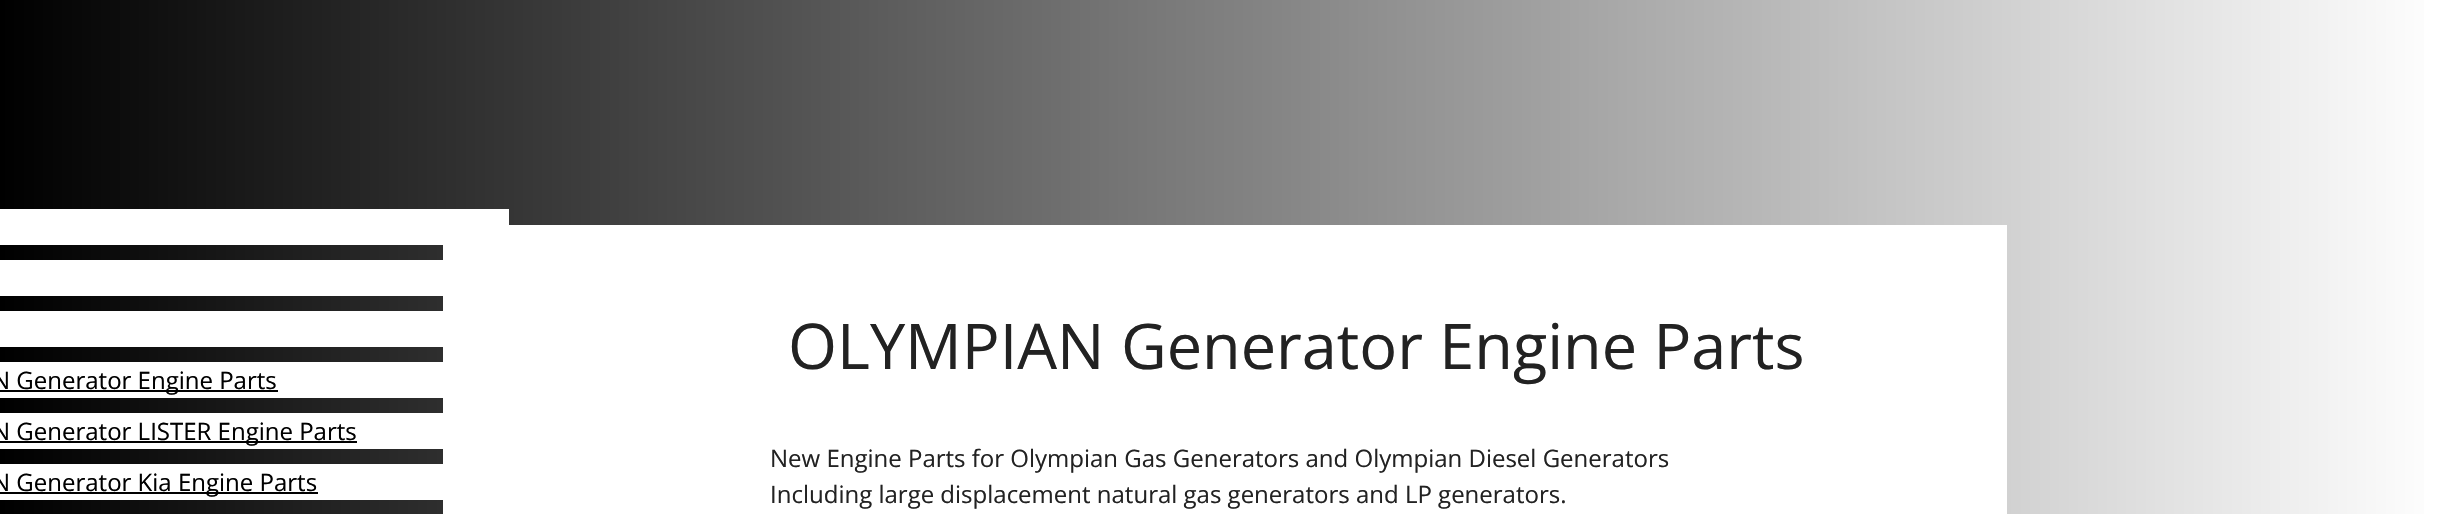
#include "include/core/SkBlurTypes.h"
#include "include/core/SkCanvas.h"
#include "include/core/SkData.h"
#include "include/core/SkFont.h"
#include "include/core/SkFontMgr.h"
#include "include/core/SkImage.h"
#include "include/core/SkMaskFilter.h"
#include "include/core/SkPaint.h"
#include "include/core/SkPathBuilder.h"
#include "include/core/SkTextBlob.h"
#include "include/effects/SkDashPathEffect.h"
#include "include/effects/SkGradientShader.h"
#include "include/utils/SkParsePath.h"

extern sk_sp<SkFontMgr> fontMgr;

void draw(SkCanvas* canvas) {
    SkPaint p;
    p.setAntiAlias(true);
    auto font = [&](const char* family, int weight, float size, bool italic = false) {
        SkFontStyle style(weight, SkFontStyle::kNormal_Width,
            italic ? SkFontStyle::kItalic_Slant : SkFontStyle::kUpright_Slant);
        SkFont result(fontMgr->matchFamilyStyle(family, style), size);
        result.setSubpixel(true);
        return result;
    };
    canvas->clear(0xFFFFFFFF);
    {
        const SkColor colors[] = {0xFF000000, 0xFFFFFFFF};
        const float stops[] = {0, 1};
        const SkPoint ends[] = {{0, 257}, {2448, 257}};
        p.setShader(SkGradientShader::MakeLinear(ends, colors, stops, 2, SkTileMode::kClamp));
        p.setAlpha(255);
    }
    canvas->drawRect(SkRect::MakeLTRB(0, 0, 2424, 514), p);
    p.setShader(nullptr);
    p.setColor(0xFFFFFFFF);
    canvas->drawRect(SkRect::MakeLTRB(443, 225, 2007, 514), p);
    auto font1 = font("Open Sans", 400, 63);
    p.setColor(0xFF222222);
    canvas->drawString("OLYMPIAN Generator Engine Parts", 788, 369, font1, p);
    {
        const struct { float l, t, r, b; SkColor color; } items[] = {
            {0, 209, 509, 245, 0xFFFFFFFF},
            {0, 260, 443, 296, 0xFFFFFFFF},
            {0, 311, 443, 347, 0xFFFFFFFF},
            {0, 362, 443, 398, 0xFFFFFFFF},
            {0, 390, 278, 392, 0xFF000000},
        };
        for (auto [l, t, r, b, color] : items) {
            p.setColor(color);
            canvas->drawRect(SkRect::MakeLTRB(l, t, r, b), p);
        }
    }
    auto font2 = font("Open Sans", 400, 24);
    canvas->drawString("N Generator Engine Parts", -8, 389, font2, p);
    p.setColor(0xFFFFFFFF);
    canvas->drawRect(SkRect::MakeLTRB(0, 413, 443, 449), p);
    p.setColor(0xFF000000);
    canvas->drawRect(SkRect::MakeLTRB(0, 441, 357, 443), p);
    canvas->drawString("N Generator LISTER Engine Parts", -8, 440, font2, p);
    p.setColor(0xFFFFFFFF);
    canvas->drawRect(SkRect::MakeLTRB(0, 464, 443, 500), p);
    p.setColor(0xFF000000);
    canvas->drawRect(SkRect::MakeLTRB(0, 492, 318, 494), p);
    canvas->drawString("N Generator Kia Engine Parts", -8, 491, font2, p);
    p.setColor(0xFF222222);
    canvas->drawString("New Engine Parts for Olympian Gas Generators and Olympian Diesel Generators", 770, 467, font2, p);
    canvas->drawString("Including large displacement natural gas generators and LP generators.", 770, 503, font2, p);
}
